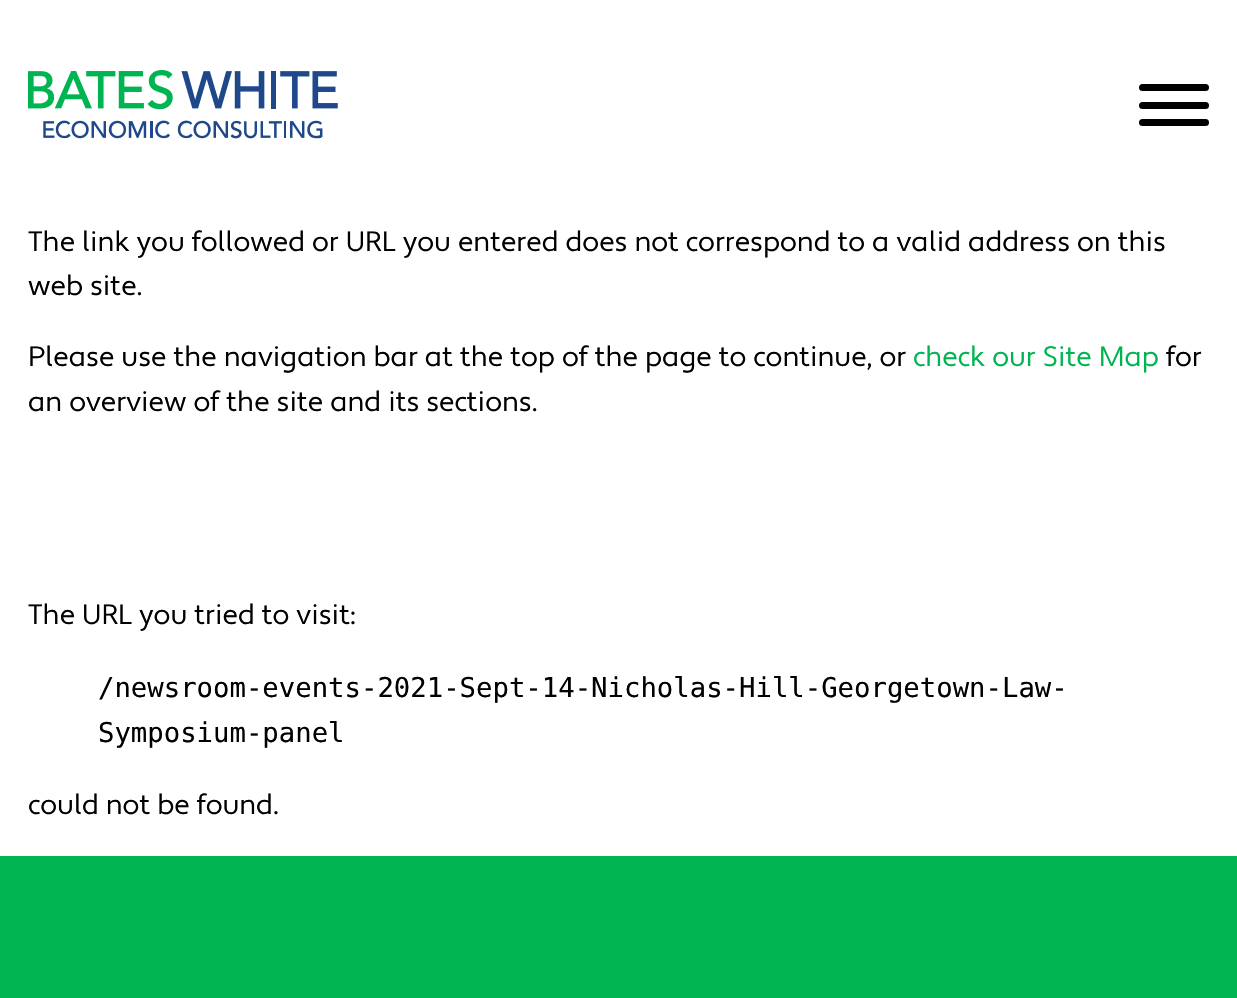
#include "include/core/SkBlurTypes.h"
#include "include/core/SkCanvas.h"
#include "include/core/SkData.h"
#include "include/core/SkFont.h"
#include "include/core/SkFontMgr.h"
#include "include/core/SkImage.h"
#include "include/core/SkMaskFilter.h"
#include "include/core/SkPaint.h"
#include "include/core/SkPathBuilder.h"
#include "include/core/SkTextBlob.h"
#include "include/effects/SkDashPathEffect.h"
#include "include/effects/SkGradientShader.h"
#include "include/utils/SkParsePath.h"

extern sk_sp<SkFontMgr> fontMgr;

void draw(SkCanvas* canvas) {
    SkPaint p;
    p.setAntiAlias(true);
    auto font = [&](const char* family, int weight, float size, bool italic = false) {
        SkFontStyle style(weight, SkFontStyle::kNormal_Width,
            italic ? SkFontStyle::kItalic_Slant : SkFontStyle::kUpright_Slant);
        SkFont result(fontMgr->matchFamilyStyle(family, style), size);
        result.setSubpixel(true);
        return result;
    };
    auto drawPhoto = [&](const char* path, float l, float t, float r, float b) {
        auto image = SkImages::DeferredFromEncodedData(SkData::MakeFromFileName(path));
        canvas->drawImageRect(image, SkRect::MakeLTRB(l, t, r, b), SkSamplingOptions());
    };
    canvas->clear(0xFFFFFFFF);
    drawPhoto("media/1.png", 28, 70, 338, 139);
    p.setColor(0xFF000000);
    canvas->drawRoundRect(SkRect::MakeLTRB(1139, 84, 1209, 91), 3.5f, 3.5f, p);
    canvas->drawRoundRect(SkRect::MakeLTRB(1139, 102, 1209, 109), 3.5f, 3.5f, p);
    canvas->drawRoundRect(SkRect::MakeLTRB(1139, 119, 1209, 126), 3.5f, 3.5f, p);
    auto font1 = font("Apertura", 400, 28);
    {
        const struct { const char* s; float x, y; } items[] = {
            {"The link you followed or URL you entered does not correspond to a valid address on this", 28, 251},
            {"web site.", 28, 295},
            {"Please use the navigation bar at the top of the page to continue, or", 28, 366},
        };
        for (auto [s, x, y] : items) {
            canvas->drawString(s, x, y, font1, p);
        }
    }
    p.setColor(0xFF00B451);
    canvas->drawString("check our Site Map", 913, 366, font1, p);
    p.setColor(0xFF000000);
    {
        const struct { const char* s; float x, y; } items[] = {
            {"for", 1166, 366},
            {"an overview of the site and its sections.", 28, 411},
            {"The URL you tried to visit:", 28, 624},
        };
        for (auto [s, x, y] : items) {
            canvas->drawString(s, x, y, font1, p);
        }
    }
    auto font2 = font("DejaVu Sans Mono", 400, 27.3f);
    canvas->drawString("/newsroom-events-2021-Sept-14-Nicholas-Hill-Georgetown-Law-", 98, 697, font2, p);
    canvas->drawString("Symposium-panel", 98, 742, font2, p);
    canvas->drawString("could not be found.", 28, 814, font1, p);
    p.setColor(0xFF00B451);
    canvas->drawRect(SkRect::MakeLTRB(0, 856, 1237, 998), p);
}
